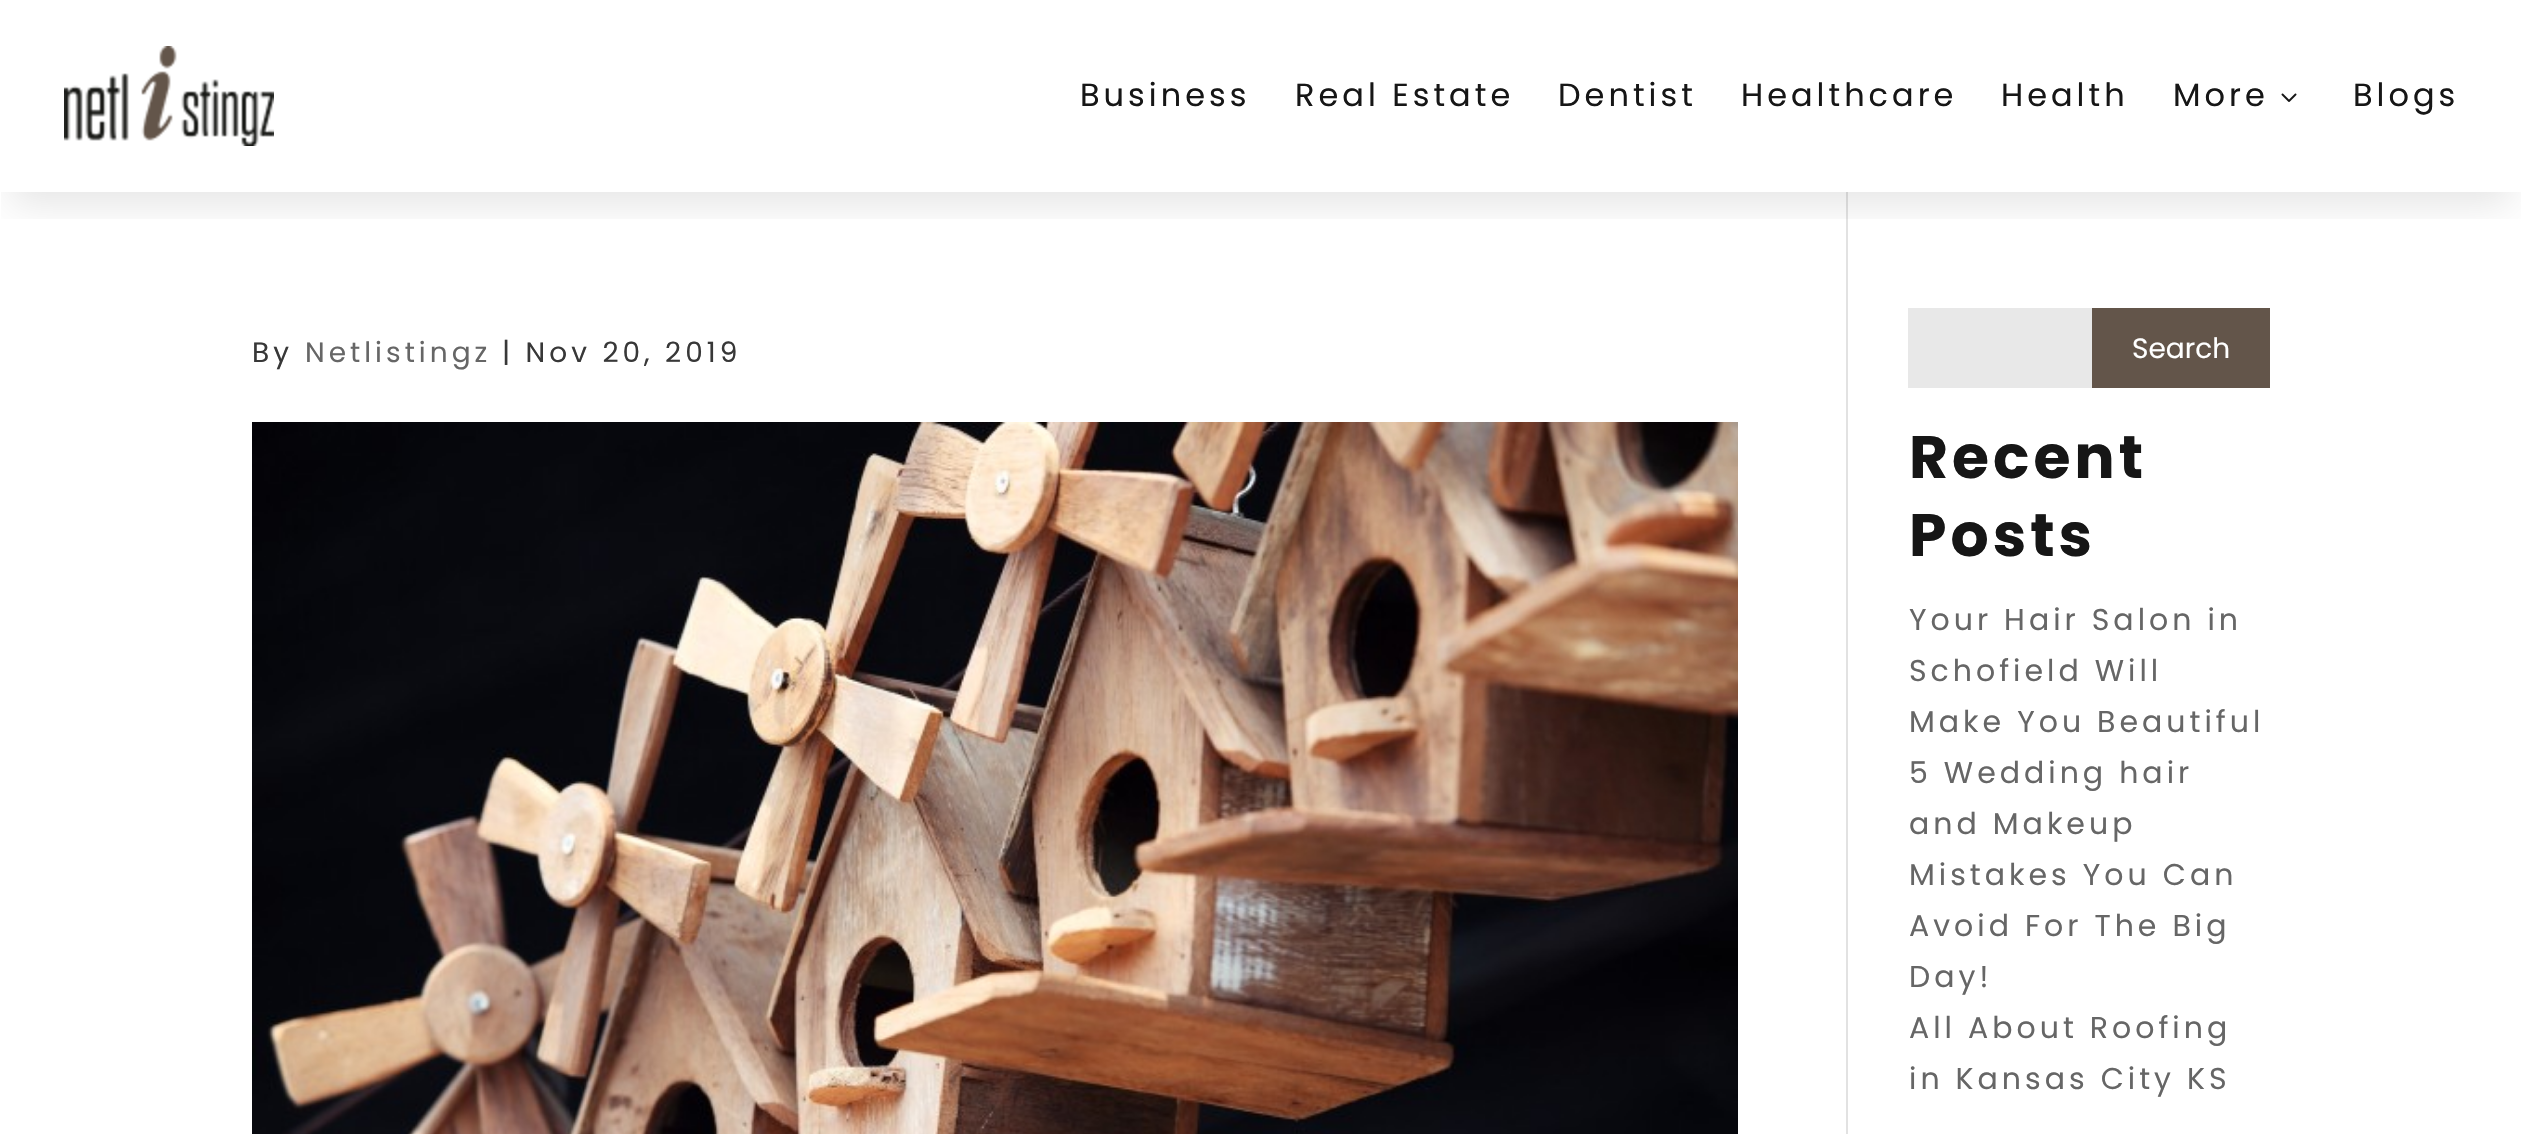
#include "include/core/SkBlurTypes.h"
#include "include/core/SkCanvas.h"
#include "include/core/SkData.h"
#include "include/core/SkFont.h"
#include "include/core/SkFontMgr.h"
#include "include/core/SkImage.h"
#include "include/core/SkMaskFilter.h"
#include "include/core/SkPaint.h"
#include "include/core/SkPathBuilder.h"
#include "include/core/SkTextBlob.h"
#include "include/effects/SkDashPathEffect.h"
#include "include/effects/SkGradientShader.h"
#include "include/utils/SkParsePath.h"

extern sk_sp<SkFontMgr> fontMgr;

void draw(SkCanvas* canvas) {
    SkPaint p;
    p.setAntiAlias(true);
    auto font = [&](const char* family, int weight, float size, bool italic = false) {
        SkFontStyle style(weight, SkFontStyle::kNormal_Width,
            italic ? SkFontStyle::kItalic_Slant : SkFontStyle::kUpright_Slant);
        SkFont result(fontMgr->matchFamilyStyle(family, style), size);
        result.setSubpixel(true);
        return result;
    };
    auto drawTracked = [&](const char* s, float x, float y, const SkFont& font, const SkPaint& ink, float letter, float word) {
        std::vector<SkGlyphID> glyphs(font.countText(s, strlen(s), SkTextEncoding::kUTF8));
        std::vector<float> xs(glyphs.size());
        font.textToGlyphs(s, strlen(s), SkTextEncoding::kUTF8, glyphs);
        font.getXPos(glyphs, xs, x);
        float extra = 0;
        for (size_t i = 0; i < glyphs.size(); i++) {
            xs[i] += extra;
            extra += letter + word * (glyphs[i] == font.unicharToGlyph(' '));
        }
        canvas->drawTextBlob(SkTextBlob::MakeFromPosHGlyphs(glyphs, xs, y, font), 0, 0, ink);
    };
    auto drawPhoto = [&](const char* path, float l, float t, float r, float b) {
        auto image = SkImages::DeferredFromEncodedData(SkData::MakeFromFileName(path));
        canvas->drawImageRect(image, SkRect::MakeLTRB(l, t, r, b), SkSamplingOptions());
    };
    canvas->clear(0xFFFFFFFF);
    p.setColor(0xFFE2E2E2);
    canvas->drawRect(SkRect::MakeLTRB(1846, 192, 1848, 1134), p);
    canvas->save();
    canvas->clipRect(SkRect::MakeLTRB(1, 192, 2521, 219));
    p.setColor(0x1A000000);
    p.setMaskFilter(SkMaskFilter::MakeBlur(kNormal_SkBlurStyle, 18));
    canvas->drawRect(SkRect::MakeLTRB(12, 36, 2510, 204), p);
    p.setMaskFilter(nullptr);
    canvas->restore();
    drawPhoto("media/1.png", 64, 46, 274, 146);
    auto font1 = font("Poppins", 400, 32);
    p.setColor(0xFF161616);
    {
        const struct { const char* s; float x, y; } items[] = {
            {"Business", 1080, 106},
            {"Real Estate", 1295, 106},
            {"Dentist", 1558, 106},
            {"Healthcare", 1741, 106},
            {"Health", 2001, 106},
            {"More", 2173, 106},
        };
        for (auto [s, x, y] : items) {
            drawTracked(s, x, y, font1, p, 4, 0);
        }
    }
    drawPhoto("media/2.png", 2281, 93, 2297, 102);
    drawTracked("Blogs", 2353, 106, font1, p, 4, 0);
    auto font2 = font("Poppins", 400, 28);
    p.setColor(0xFF383838);
    drawTracked("By", 252, 362, font2, p, 4, 0);
    p.setColor(0xFF666666);
    drawTracked("Netlistingz", 305, 362, font2, p, 4, 0);
    p.setColor(0xFF383838);
    drawTracked("| Nov 20, 2019", 502, 362, font2, p, 4, 0);
    drawPhoto("media/3.png", 252, 422, 1738, 1134);
    p.setColor(0xFFE8E8E8);
    canvas->drawRect(SkRect::MakeLTRB(1908, 308, 2092, 388), p);
    p.setColor(0xFF63554A);
    canvas->drawRect(SkRect::MakeLTRB(2092, 308, 2270, 388), p);
    p.setColor(0xFFFFFFFF);
    canvas->drawString("Search", 2132, 358, font2, p);
    auto font3 = font("Poppins", 700, 60);
    p.setColor(0xFF161616);
    drawTracked("Recent", 1909, 478, font3, p, 4, 0);
    drawTracked("Posts", 1909, 556, font3, p, 4, 0);
    auto font4 = font("Poppins", 400, 30);
    p.setColor(0xFF666666);
    {
        const struct { const char* s; float x, y; } items[] = {
            {"Your Hair Salon in", 1909, 630},
            {"Schofield Will", 1909, 681},
            {"Make You Beautiful", 1909, 732},
            {"5 Wedding hair", 1909, 783},
            {"and Makeup", 1909, 834},
            {"Mistakes You Can", 1909, 885},
            {"Avoid For The Big", 1909, 936},
            {"Day!", 1909, 987},
            {"All About Roofing", 1909, 1038},
            {"in Kansas City KS", 1909, 1089},
        };
        for (auto [s, x, y] : items) {
            drawTracked(s, x, y, font4, p, 4, 0);
        }
    }
}
